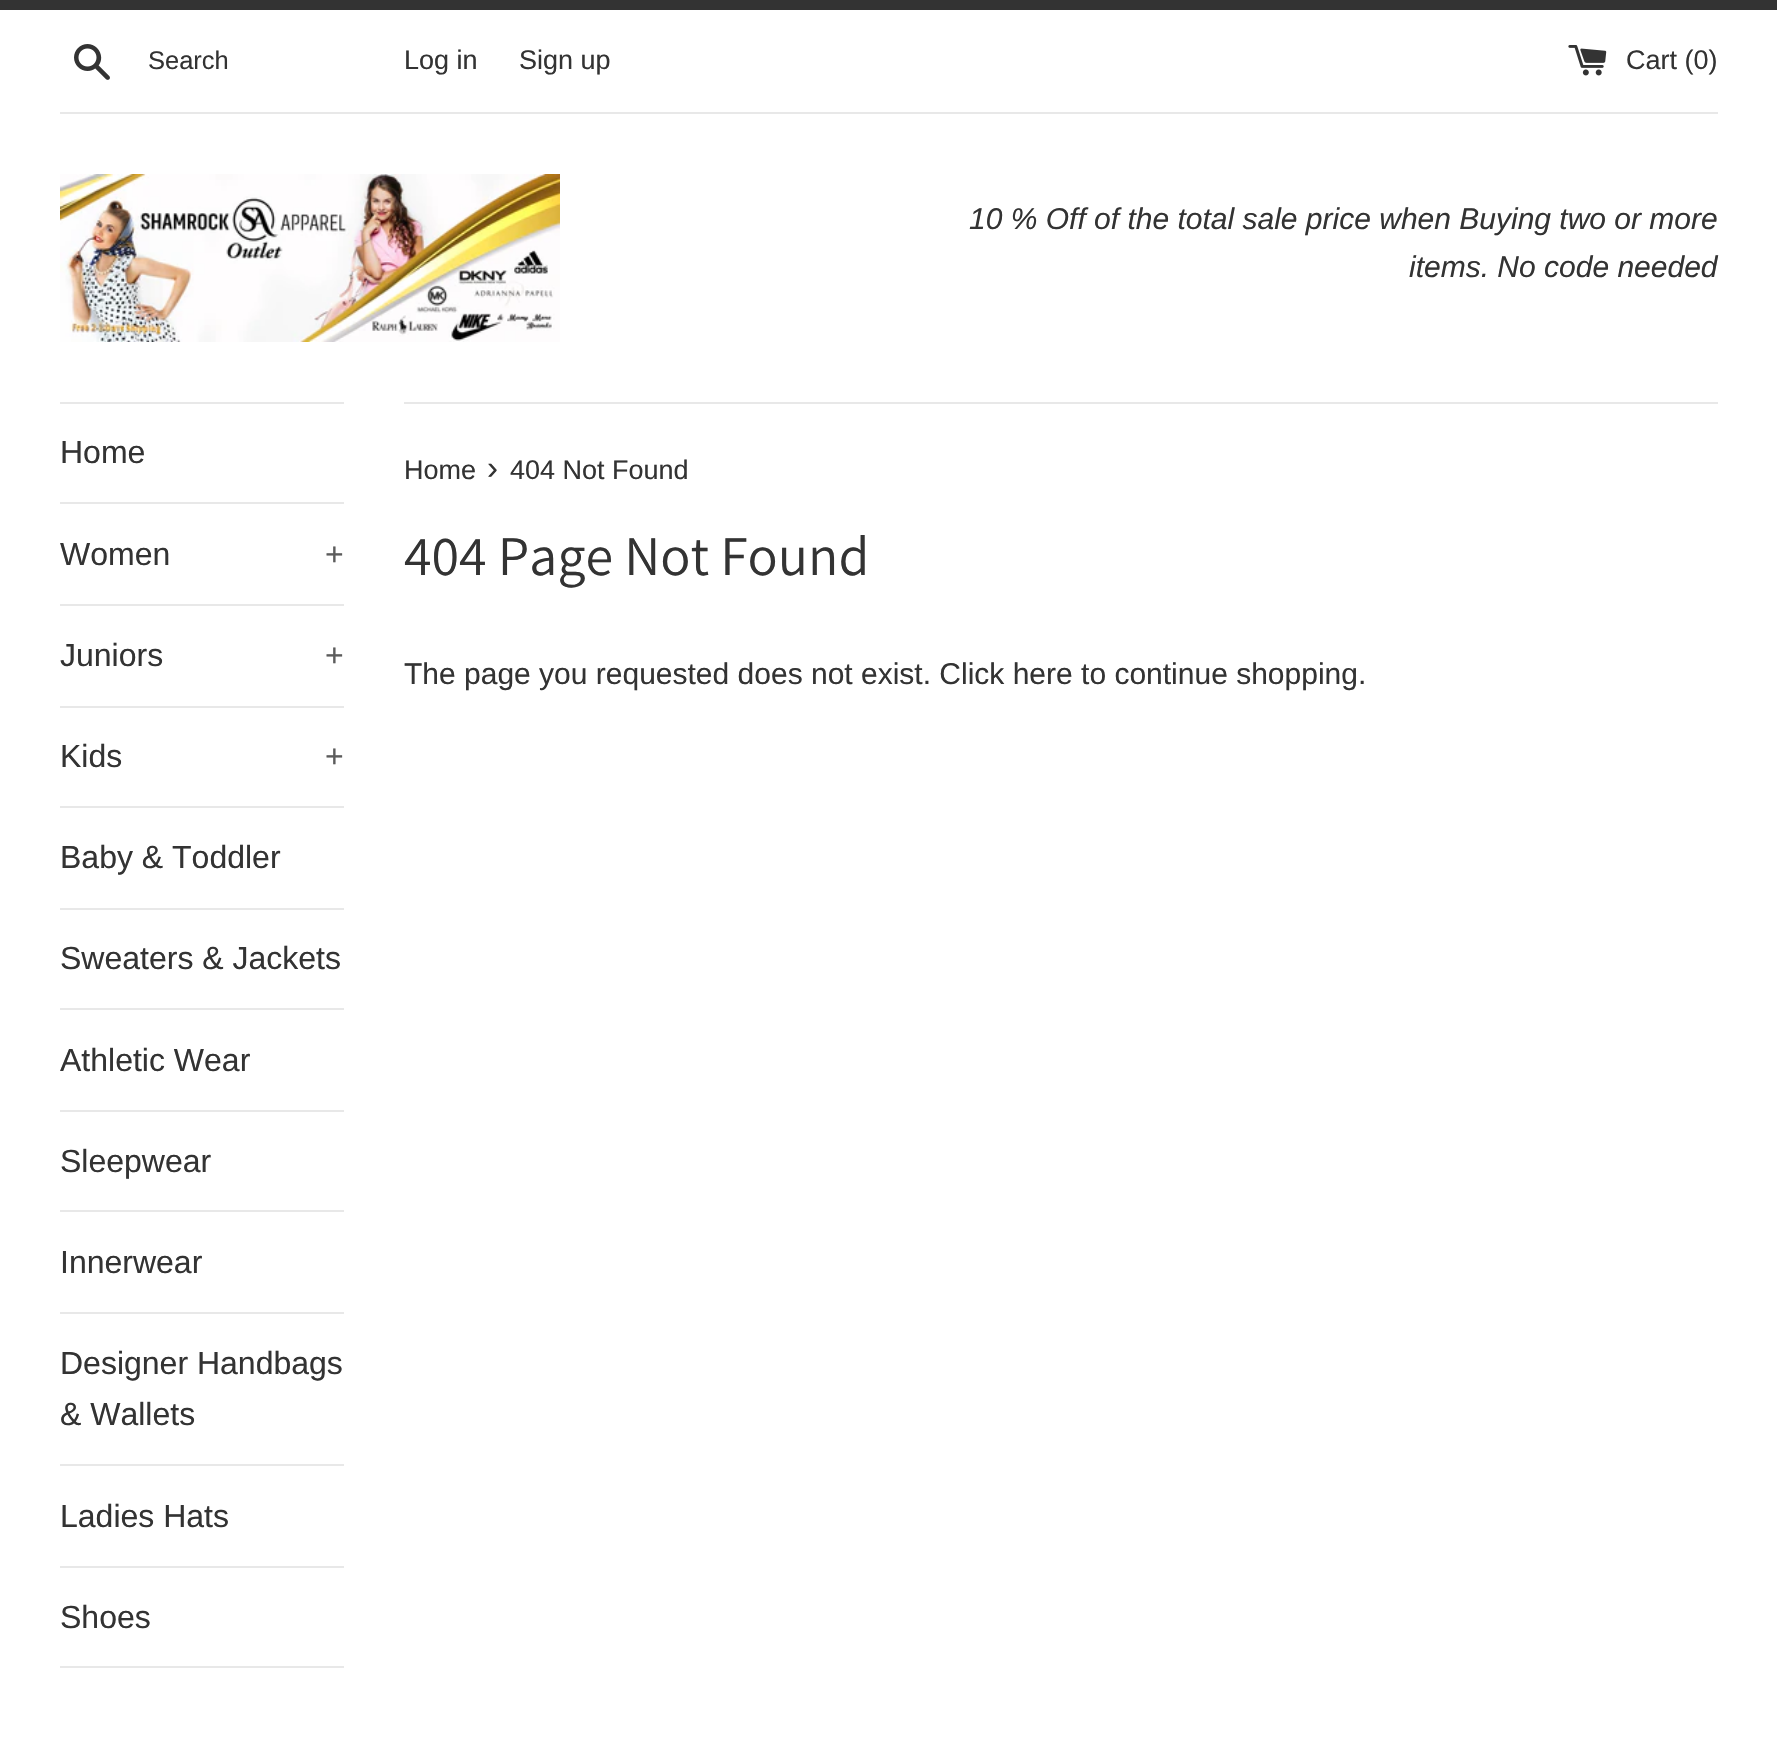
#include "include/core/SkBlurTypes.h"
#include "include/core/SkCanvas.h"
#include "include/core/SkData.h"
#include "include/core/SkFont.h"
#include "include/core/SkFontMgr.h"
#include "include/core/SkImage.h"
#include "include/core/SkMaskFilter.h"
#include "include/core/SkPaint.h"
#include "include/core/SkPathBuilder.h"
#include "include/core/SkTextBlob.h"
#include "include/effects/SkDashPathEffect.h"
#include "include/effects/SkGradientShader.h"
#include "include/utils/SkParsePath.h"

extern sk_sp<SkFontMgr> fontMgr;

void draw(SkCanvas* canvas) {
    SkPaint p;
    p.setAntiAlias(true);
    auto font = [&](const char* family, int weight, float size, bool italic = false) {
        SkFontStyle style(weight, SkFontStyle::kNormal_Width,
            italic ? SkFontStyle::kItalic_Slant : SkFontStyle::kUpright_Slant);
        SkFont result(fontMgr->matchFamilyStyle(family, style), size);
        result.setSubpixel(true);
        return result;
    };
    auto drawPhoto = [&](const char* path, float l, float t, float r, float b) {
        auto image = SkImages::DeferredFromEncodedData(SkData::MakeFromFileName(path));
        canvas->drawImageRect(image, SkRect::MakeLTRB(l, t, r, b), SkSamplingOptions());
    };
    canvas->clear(0xFFFFFFFF);
    p.setColor(0xFF333333);
    canvas->drawRect(SkRect::MakeLTRB(0, 0, 1777, 10), p);
    drawPhoto("media/1.png", 74, 44, 110, 80);
    auto font1 = font("Liberation Sans", 400, 25.5f);
    canvas->drawString("Search", 148, 69, font1, p);
    auto font2 = font("Liberation Sans", 400, 27);
    canvas->drawString("Log in", 404, 69, font2, p);
    canvas->drawString("Sign up", 519, 69, font2, p);
    drawPhoto("media/2.png", 1568, 45, 1607, 76);
    canvas->drawString("Cart (0)", 1626, 69, font2, p);
    p.setColor(0xFFE8E8E8);
    canvas->drawRect(SkRect::MakeLTRB(60, 112, 1718, 114), p);
    drawPhoto("media/3.png", 60, 174, 560, 342);
    auto font3 = font("Liberation Sans", 400, 30, true);
    p.setColor(0xFF333333);
    canvas->drawString("10 % Off of the total sale price when Buying two or more", 969, 229, font3, p);
    canvas->drawString("items. No code needed", 1409, 277, font3, p);
    p.setColor(0xFFE8E8E8);
    canvas->drawRect(SkRect::MakeLTRB(60, 402, 344, 404), p);
    canvas->drawRect(SkRect::MakeLTRB(60, 502, 344, 504), p);
    auto font4 = font("Liberation Sans", 400, 32);
    p.setColor(0xFF333333);
    canvas->drawString("Home", 60, 463, font4, p);
    p.setColor(0xFFE8E8E8);
    canvas->drawRect(SkRect::MakeLTRB(60, 604, 344, 606), p);
    p.setColor(0xFF333333);
    canvas->drawString("Women", 60, 565, font4, p);
    p.setColor(0xFF5C5C5C);
    canvas->drawString("+", 325, 565, font4, p);
    p.setColor(0xFFE8E8E8);
    canvas->drawRect(SkRect::MakeLTRB(60, 706, 344, 708), p);
    p.setColor(0xFF333333);
    canvas->drawString("Juniors", 60, 666, font4, p);
    p.setColor(0xFF5C5C5C);
    canvas->drawString("+", 325, 666, font4, p);
    p.setColor(0xFFE8E8E8);
    canvas->drawRect(SkRect::MakeLTRB(60, 806, 344, 808), p);
    p.setColor(0xFF333333);
    canvas->drawString("Kids", 60, 767, font4, p);
    p.setColor(0xFF5C5C5C);
    canvas->drawString("+", 325, 767, font4, p);
    p.setColor(0xFFE8E8E8);
    canvas->drawRect(SkRect::MakeLTRB(60, 908, 344, 910), p);
    p.setColor(0xFF333333);
    canvas->drawString("Baby & Toddler", 60, 868, font4, p);
    p.setColor(0xFFE8E8E8);
    canvas->drawRect(SkRect::MakeLTRB(60, 1008, 344, 1010), p);
    p.setColor(0xFF333333);
    canvas->drawString("Sweaters & Jackets", 60, 969, font4, p);
    p.setColor(0xFFE8E8E8);
    canvas->drawRect(SkRect::MakeLTRB(60, 1110, 344, 1112), p);
    p.setColor(0xFF333333);
    canvas->drawString("Athletic Wear", 60, 1071, font4, p);
    p.setColor(0xFFE8E8E8);
    canvas->drawRect(SkRect::MakeLTRB(60, 1210, 344, 1212), p);
    p.setColor(0xFF333333);
    canvas->drawString("Sleepwear", 60, 1172, font4, p);
    p.setColor(0xFFE8E8E8);
    canvas->drawRect(SkRect::MakeLTRB(60, 1312, 344, 1314), p);
    p.setColor(0xFF333333);
    canvas->drawString("Innerwear", 60, 1273, font4, p);
    p.setColor(0xFFE8E8E8);
    canvas->drawRect(SkRect::MakeLTRB(60, 1464, 344, 1466), p);
    p.setColor(0xFF333333);
    canvas->drawString("Designer Handbags", 60, 1374, font4, p);
    canvas->drawString("& Wallets", 60, 1425, font4, p);
    p.setColor(0xFFE8E8E8);
    canvas->drawRect(SkRect::MakeLTRB(60, 1566, 344, 1568), p);
    p.setColor(0xFF333333);
    canvas->drawString("Ladies Hats", 60, 1527, font4, p);
    p.setColor(0xFFE8E8E8);
    canvas->drawRect(SkRect::MakeLTRB(60, 1666, 344, 1668), p);
    p.setColor(0xFF333333);
    canvas->drawString("Shoes", 60, 1628, font4, p);
    p.setColor(0xFFE8E8E8);
    canvas->drawRect(SkRect::MakeLTRB(404, 402, 1718, 404), p);
    p.setColor(0xFF333333);
    canvas->drawString("Home", 404, 479, font2, p);
    auto font5 = font("Liberation Sans", 400, 33);
    canvas->drawString("›", 487, 479, font5, p);
    canvas->drawString("404 Not Found", 510, 479, font2, p);
    auto font6 = font("Assistant", 400, 56);
    canvas->drawString("404 Page Not Found", 404, 575, font6, p);
    auto font7 = font("Liberation Sans", 400, 30);
    canvas->drawString("The page you requested does not exist. Click here to continue shopping.", 404, 684, font7, p);
}
